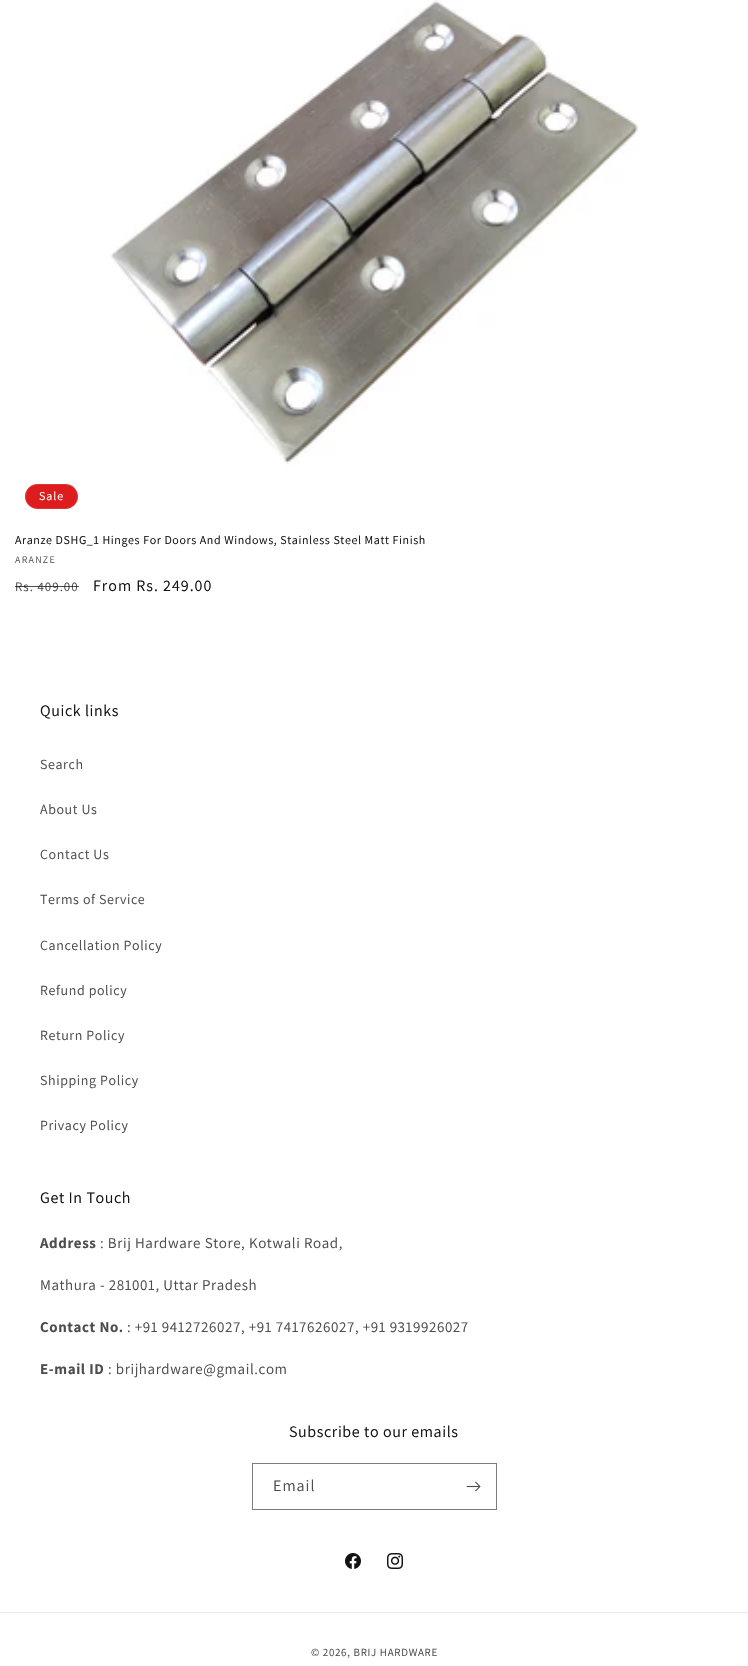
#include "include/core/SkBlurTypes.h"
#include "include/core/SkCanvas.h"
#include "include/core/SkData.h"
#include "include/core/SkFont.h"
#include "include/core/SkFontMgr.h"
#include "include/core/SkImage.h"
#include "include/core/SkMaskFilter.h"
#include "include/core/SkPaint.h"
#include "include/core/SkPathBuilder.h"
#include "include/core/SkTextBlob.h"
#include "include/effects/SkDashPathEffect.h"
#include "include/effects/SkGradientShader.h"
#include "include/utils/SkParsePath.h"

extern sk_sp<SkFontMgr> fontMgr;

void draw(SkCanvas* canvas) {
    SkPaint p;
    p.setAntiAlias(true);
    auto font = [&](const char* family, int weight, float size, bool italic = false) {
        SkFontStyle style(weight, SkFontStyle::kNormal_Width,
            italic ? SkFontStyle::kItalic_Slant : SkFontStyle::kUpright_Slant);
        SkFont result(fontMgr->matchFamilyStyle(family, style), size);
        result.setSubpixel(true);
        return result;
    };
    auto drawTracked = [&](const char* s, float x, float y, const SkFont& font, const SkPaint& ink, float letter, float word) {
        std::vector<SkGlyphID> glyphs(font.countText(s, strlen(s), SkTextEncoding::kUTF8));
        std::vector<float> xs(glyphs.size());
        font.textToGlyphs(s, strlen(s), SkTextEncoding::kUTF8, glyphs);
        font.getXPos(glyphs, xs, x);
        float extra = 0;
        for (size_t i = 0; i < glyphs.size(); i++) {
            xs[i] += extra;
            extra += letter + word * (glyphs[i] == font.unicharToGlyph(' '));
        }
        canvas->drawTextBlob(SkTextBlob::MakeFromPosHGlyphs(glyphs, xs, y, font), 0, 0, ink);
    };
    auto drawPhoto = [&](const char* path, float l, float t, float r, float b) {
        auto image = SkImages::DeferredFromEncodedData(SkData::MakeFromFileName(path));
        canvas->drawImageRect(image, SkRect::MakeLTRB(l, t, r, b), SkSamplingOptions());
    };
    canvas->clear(0xFFFFFFFF);
    drawPhoto("media/1.png", 15, 0, 733, 519);
    p.setColor(0xFFDD1D1D);
    canvas->drawRoundRect(SkRect::MakeLTRB(25, 484, 78, 509), 12.5f, 12.5f, p);
    p.setStyle(SkPaint::kStroke_Style);
    p.setStrokeWidth(1);
    p.setColor(0x1AFFFFFF);
    canvas->drawRoundRect(SkRect::MakeLTRB(25.5f, 484.5f, 77.5f, 508.5f), 12, 12, p);
    auto font1 = font("Assistant", 400, 12);
    p.setStyle(SkPaint::kFill_Style);
    p.setColor(0xFFFFFFFF);
    drawTracked("Sale", 39, 500, font1, p, 1, 0);
    p.setColor(0xFF121212);
    drawTracked("Aranze DSHG_1 Hinges For Doors And Windows, Stainless Steel Matt Finish", 15, 544, font1, p, 0.6f, 0);
    auto font2 = font("Assistant", 400, 10);
    p.setColor(0xFF595959);
    drawTracked("ARANZE", 15, 563, font2, p, 1.25f, 0);
    auto font3 = font("Assistant", 400, 13);
    p.setColor(0xFF4D4D4D);
    drawTracked("Rs. 409.00", 15, 591, font3, p, 1, 0);
    p.setColor(0xBF121212);
    canvas->drawRect(SkRect::MakeLTRB(15, 586, 79, 587), p);
    auto font4 = font("Assistant", 400, 16);
    p.setColor(0xFF121212);
    drawTracked("From Rs. 249.00", 93, 591, font4, p, 1, 0);
    drawTracked("Quick links", 40, 716, font4, p, 0.6f, 0);
    auto font5 = font("Assistant", 400, 14);
    p.setColor(0xFF4D4D4D);
    {
        const struct { const char* s; float x, y; } items[] = {
            {"Search", 40, 769},
            {"About Us", 40, 814},
            {"Contact Us", 40, 859},
            {"Terms of Service", 40, 904},
            {"Cancellation Policy", 40, 950},
            {"Refund policy", 40, 995},
            {"Return Policy", 40, 1040},
            {"Shipping Policy", 40, 1085},
            {"Privacy Policy", 40, 1130},
        };
        for (auto [s, x, y] : items) {
            drawTracked(s, x, y, font5, p, 0.6f, 0);
        }
    }
    p.setColor(0xFF121212);
    drawTracked("Get In Touch", 40, 1203, font4, p, 0.6f, 0);
    auto font6 = font("Assistant", 700, 15);
    p.setColor(0xFF4D4D4D);
    drawTracked("Address", 40, 1248, font6, p, 0.6f, 0);
    auto font7 = font("Assistant", 400, 15);
    drawTracked(": Brij Hardware Store, Kotwali Road,", 100, 1248, font7, p, 0.6f, 0);
    drawTracked("Mathura - 281001, Uttar Pradesh", 40, 1290, font7, p, 0.6f, 0);
    drawTracked("Contact No.", 40, 1332, font6, p, 0.6f, 0);
    drawTracked(": +91 9412726027, +91 7417626027, +91 9319926027", 127, 1332, font7, p, 0.6f, 0);
    drawTracked("E-mail ID", 40, 1374, font6, p, 0.6f, 0);
    drawTracked(": brijhardware@gmail.com", 108, 1374, font7, p, 0.6f, 0);
    p.setColor(0xFF121212);
    drawTracked("Subscribe to our emails", 289, 1437, font4, p, 0.6f, 0);
    p.setStyle(SkPaint::kStroke_Style);
    p.setColor(0xFF7D7D7D);
    canvas->drawRect(SkRect::MakeLTRB(252.5f, 1463.5f, 496.5f, 1509.5f), p);
    p.setStyle(SkPaint::kFill_Style);
    p.setColor(0xFF4D4D4D);
    drawTracked("Email", 273, 1491, font4, p, 1, 0);
    drawPhoto("media/2.png", 466, 1481, 481, 1492);
    drawPhoto("media/3.png", 345, 1553, 361, 1569);
    drawPhoto("media/4.png", 387, 1553, 403, 1569);
    p.setColor(0xFFECECEC);
    canvas->drawRect(SkRect::MakeLTRB(0, 1612, 748, 1613), p);
    auto font8 = font("Assistant", 400, 11);
    p.setColor(0xFF4D4D4D);
    drawTracked("© 2026, BRIJ HARDWARE", 311, 1656, font8, p, 0.7f, 0);
}
